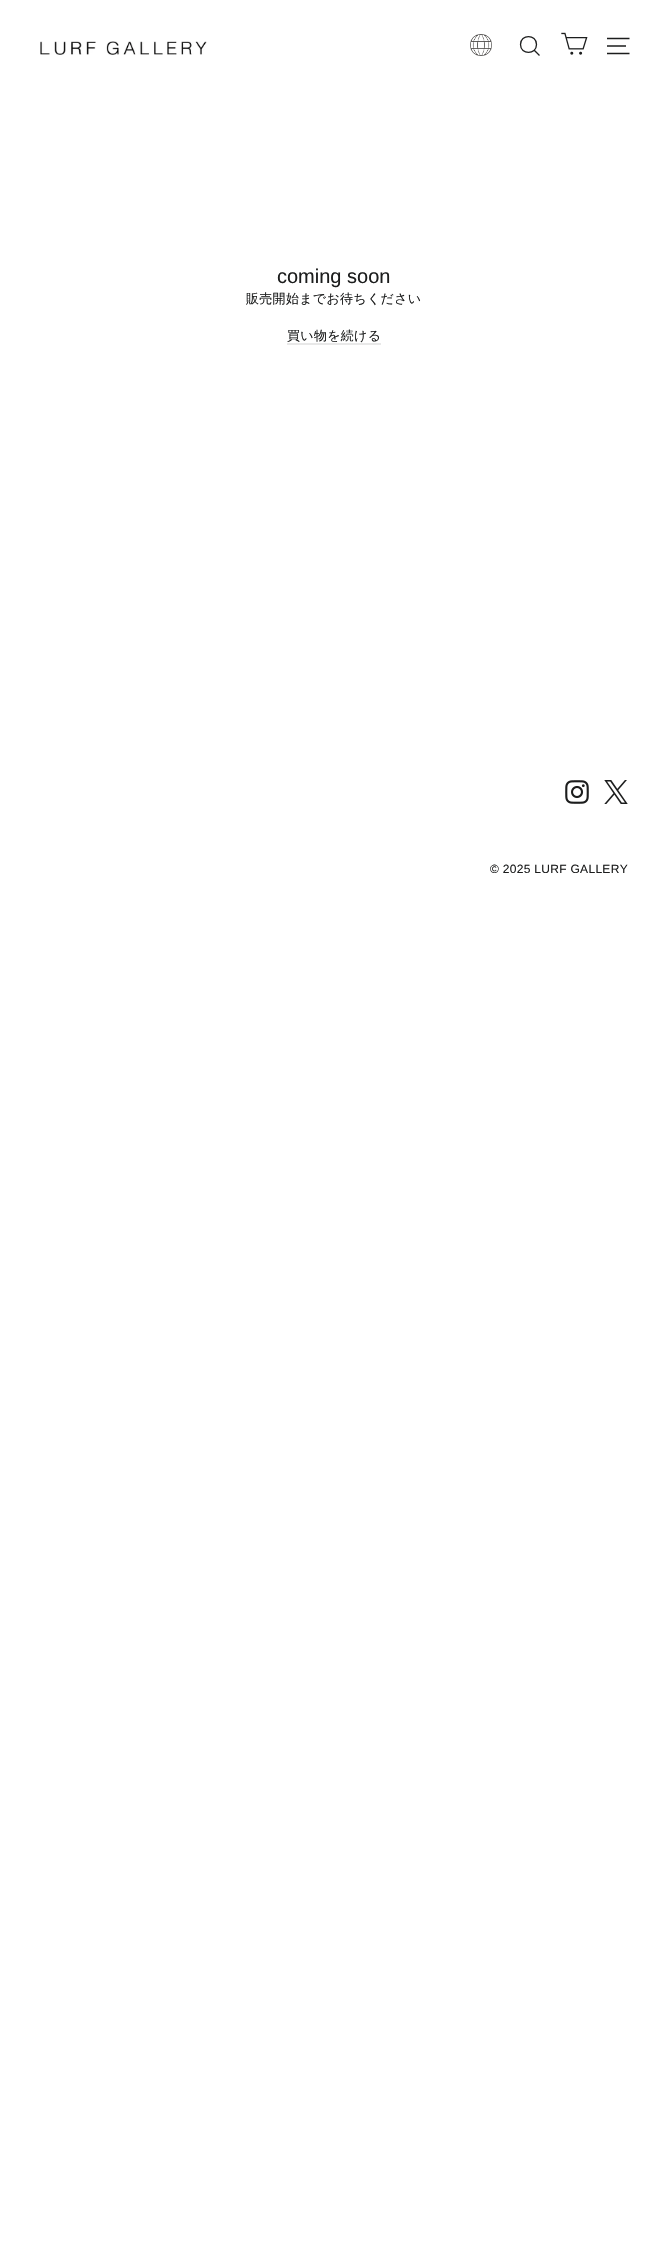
#include "include/core/SkBlurTypes.h"
#include "include/core/SkCanvas.h"
#include "include/core/SkData.h"
#include "include/core/SkFont.h"
#include "include/core/SkFontMgr.h"
#include "include/core/SkImage.h"
#include "include/core/SkMaskFilter.h"
#include "include/core/SkPaint.h"
#include "include/core/SkPathBuilder.h"
#include "include/core/SkTextBlob.h"
#include "include/effects/SkDashPathEffect.h"
#include "include/effects/SkGradientShader.h"
#include "include/utils/SkParsePath.h"

extern sk_sp<SkFontMgr> fontMgr;

void draw(SkCanvas* canvas) {
    SkPaint p;
    p.setAntiAlias(true);
    auto font = [&](const char* family, int weight, float size, bool italic = false) {
        SkFontStyle style(weight, SkFontStyle::kNormal_Width,
            italic ? SkFontStyle::kItalic_Slant : SkFontStyle::kUpright_Slant);
        SkFont result(fontMgr->matchFamilyStyle(family, style), size);
        result.setSubpixel(true);
        return result;
    };
    auto drawTracked = [&](const char* s, float x, float y, const SkFont& font, const SkPaint& ink, float letter, float word) {
        std::vector<SkGlyphID> glyphs(font.countText(s, strlen(s), SkTextEncoding::kUTF8));
        std::vector<float> xs(glyphs.size());
        font.textToGlyphs(s, strlen(s), SkTextEncoding::kUTF8, glyphs);
        font.getXPos(glyphs, xs, x);
        float extra = 0;
        for (size_t i = 0; i < glyphs.size(); i++) {
            xs[i] += extra;
            extra += letter + word * (glyphs[i] == font.unicharToGlyph(' '));
        }
        canvas->drawTextBlob(SkTextBlob::MakeFromPosHGlyphs(glyphs, xs, y, font), 0, 0, ink);
    };
    auto drawPhoto = [&](const char* path, float l, float t, float r, float b) {
        auto image = SkImages::DeferredFromEncodedData(SkData::MakeFromFileName(path));
        canvas->drawImageRect(image, SkRect::MakeLTRB(l, t, r, b), SkSamplingOptions());
    };
    canvas->clear(0xFFFFFFFF);
    drawPhoto("media/1.png", 40, 41, 207, 55);
    drawPhoto("media/2.png", 470, 34, 492, 56);
    p.setStyle(SkPaint::kStroke_Style);
    p.setStrokeWidth(1.3f);
    p.setColor(0xFF1C1D1D);
    canvas->drawPath(SkPathBuilder().moveTo(536.5f, 44.5f).cubicTo(536.5f, 55, 520.5f, 55, 520.5f, 44.5f).cubicTo(520.5f, 34, 536.5f, 34, 536.5f, 44.5f).close().moveTo(539.5f, 55.5f).lineTo(534.5f, 50.5f).detach(), p);
    drawPhoto("media/3.png", 561, 32, 588, 55);
    canvas->drawPath(SkPathBuilder().moveTo(607, 38.5f).lineTo(629.5f, 38.5f).moveTo(607, 46).lineTo(626, 46).moveTo(607, 53.5f).lineTo(629.5f, 53.5f).detach(), p);
    auto font1 = font("Liberation Sans", 400, 20);
    p.setStyle(SkPaint::kFill_Style);
    canvas->drawString("coming soon", 277, 283, font1, p);
    auto font2 = font("WenQuanYi Zen Hei", 500, 13);
    drawTracked("販売開始までお待ちください", 246, 303, font2, p, 0.3f, 0);
    drawTracked("買い物を続ける", 287, 340, font2, p, 0.3f, 0);
    p.setColor(0xFFE8E8E8);
    canvas->drawRect(SkRect::MakeLTRB(287, 343, 381, 345), p);
    drawPhoto("media/4.png", 565, 780, 589, 804);
    drawPhoto("media/5.png", 604, 780, 628, 804);
    auto font3 = font("Liberation Sans", 400, 12);
    p.setColor(0xFF1C1D1D);
    drawTracked("© 2025 LURF GALLERY", 490, 873, font3, p, 0.3f, 0);
}
